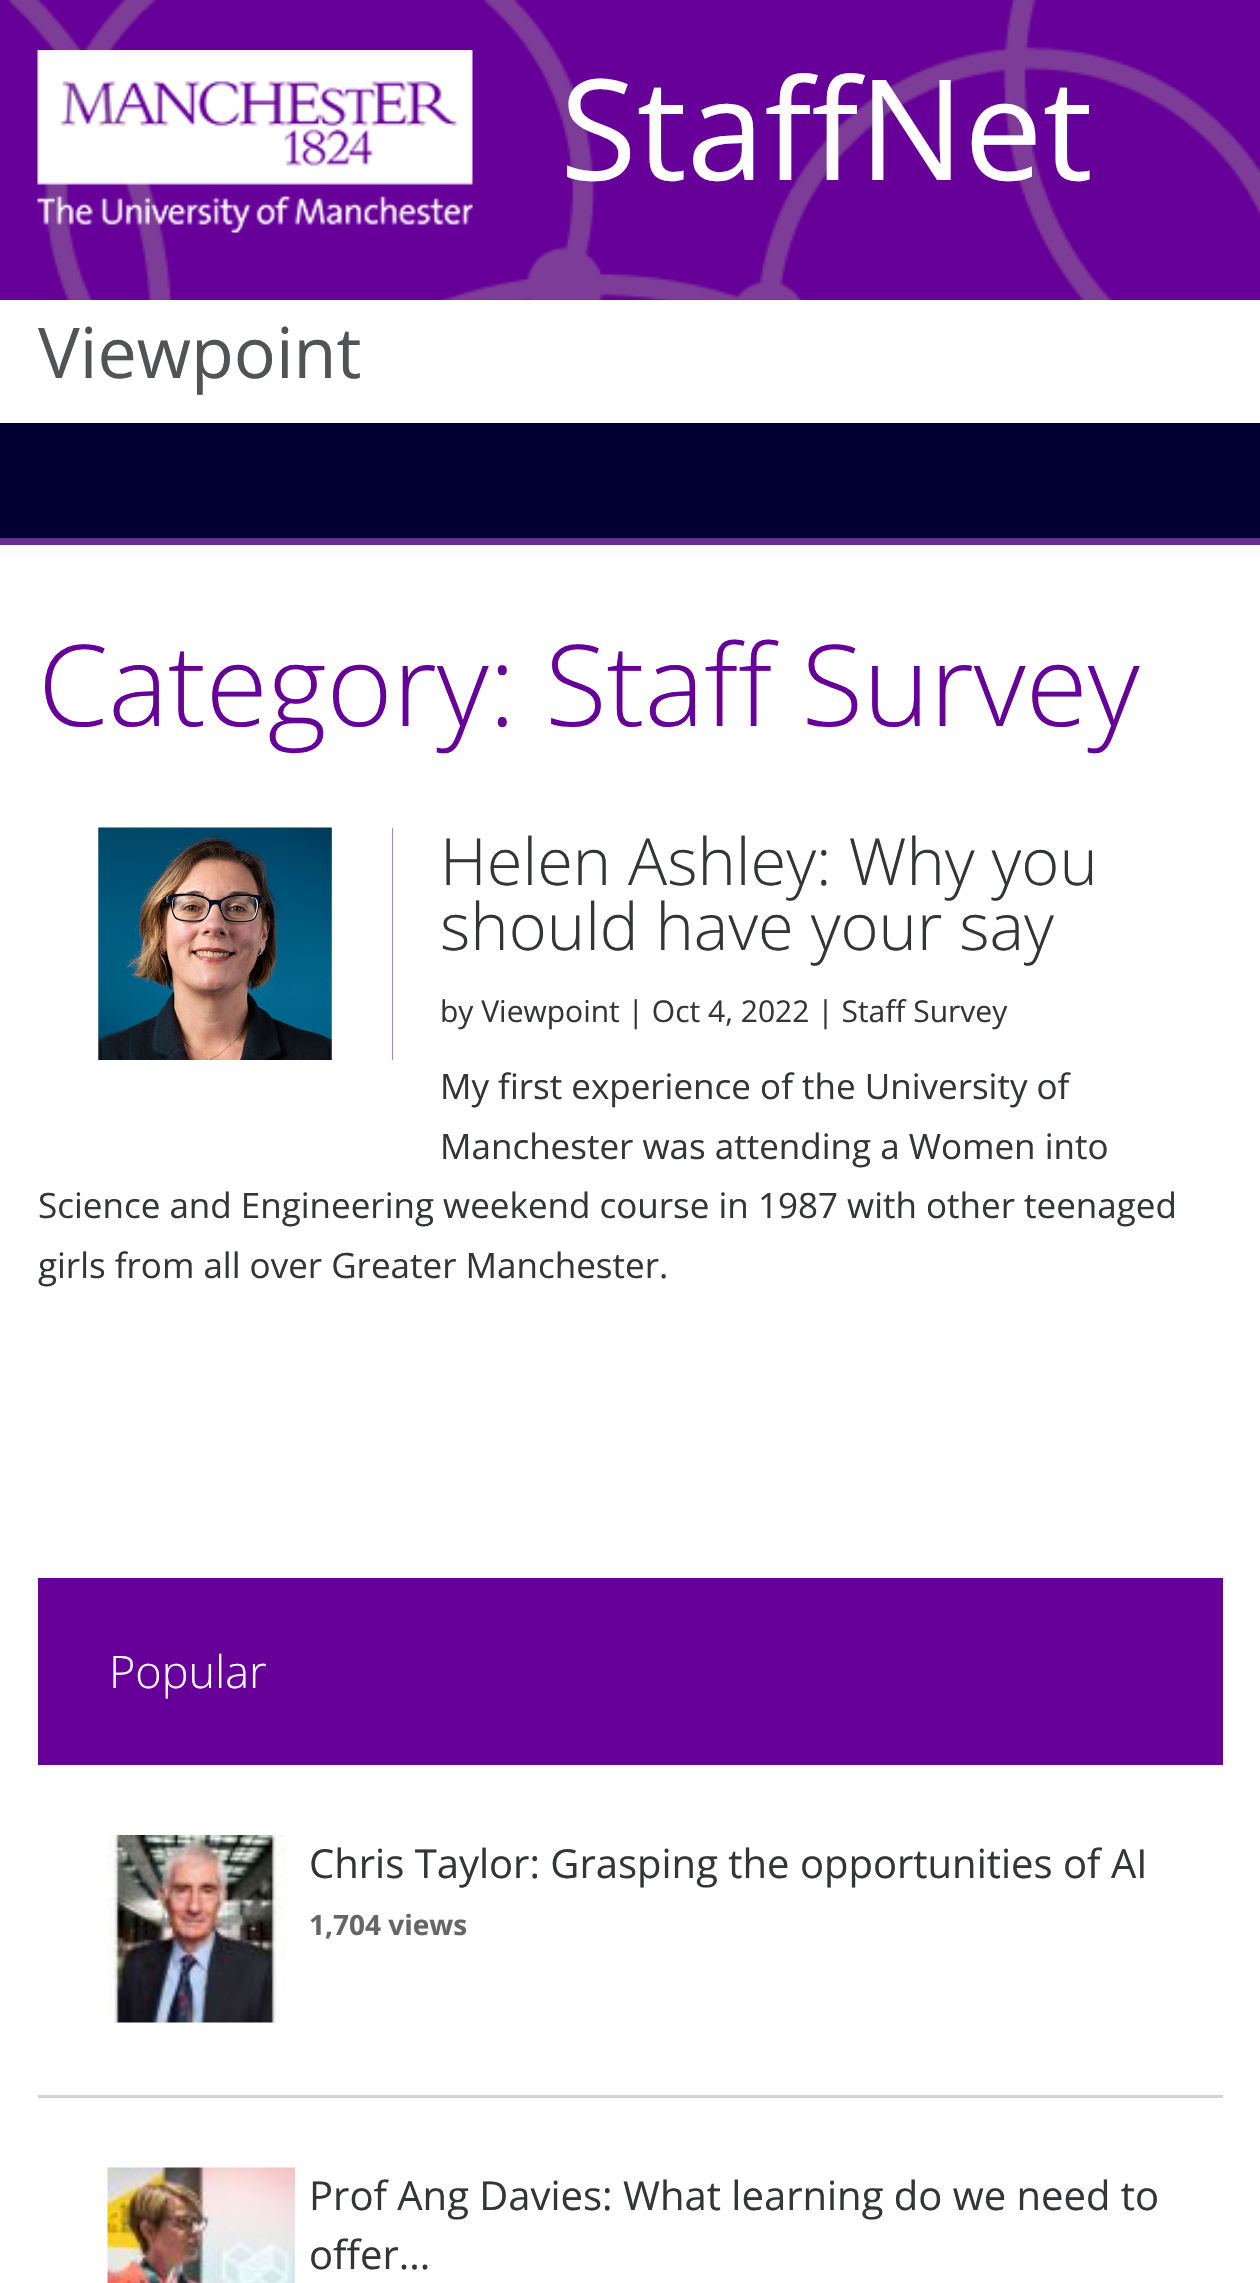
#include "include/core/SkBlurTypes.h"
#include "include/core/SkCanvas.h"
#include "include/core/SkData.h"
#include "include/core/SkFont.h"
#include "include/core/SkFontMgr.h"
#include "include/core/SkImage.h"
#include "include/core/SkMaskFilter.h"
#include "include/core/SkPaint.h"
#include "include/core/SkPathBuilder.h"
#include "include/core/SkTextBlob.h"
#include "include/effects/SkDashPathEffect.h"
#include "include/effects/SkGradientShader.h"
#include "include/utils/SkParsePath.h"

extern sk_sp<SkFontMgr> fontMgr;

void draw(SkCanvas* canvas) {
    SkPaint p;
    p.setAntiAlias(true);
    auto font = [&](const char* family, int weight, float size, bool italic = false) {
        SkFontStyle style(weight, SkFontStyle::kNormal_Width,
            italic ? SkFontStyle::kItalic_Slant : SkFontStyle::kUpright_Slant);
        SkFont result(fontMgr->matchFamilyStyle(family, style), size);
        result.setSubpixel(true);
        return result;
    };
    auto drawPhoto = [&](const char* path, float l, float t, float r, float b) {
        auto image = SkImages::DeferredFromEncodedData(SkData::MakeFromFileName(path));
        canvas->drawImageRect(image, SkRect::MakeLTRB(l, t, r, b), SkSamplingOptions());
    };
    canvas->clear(0xFFFFFFFF);
    p.setColor(0xFF660099);
    canvas->drawRect(SkRect::MakeLTRB(0, 0, 1260, 300), p);
    drawPhoto("media/1.png", 7, 0, 1260, 300);
    drawPhoto("media/2.png", 37, 50, 473, 233);
    auto font1 = font("Open Sans", 400, 140);
    p.setColor(0xFFFFFFFF);
    canvas->drawString("StaffNet", 560, 180, font1, p);
    auto font2 = font("Open Sans", 400, 70);
    p.setColor(0xFF525355);
    canvas->drawString("Viewpoint", 38, 378, font2, p);
    p.setColor(0xFF000033);
    canvas->drawRect(SkRect::MakeLTRB(0, 423, 1260, 538), p);
    p.setColor(0xFF6B2C91);
    canvas->drawRect(SkRect::MakeLTRB(0, 538, 1260, 545), p);
    auto font3 = font("Open Sans", 300, 113);
    p.setColor(0xFF660099);
    canvas->drawString("Category: Staff Survey", 38, 726, font3, p);
    canvas->drawRect(SkRect::MakeLTRB(392, 828, 393, 1060), p);
    drawPhoto("media/3.png", 38, 827, 393, 1060);
    auto font4 = font("Open Sans", 300, 65);
    p.setColor(0xFF343536);
    canvas->drawString("Helen Ashley: Why you", 440, 885, font4, p);
    canvas->drawString("should have your say", 440, 950, font4, p);
    auto font5 = font("Open Sans", 400, 30);
    canvas->drawString("by Viewpoint | Oct 4, 2022 | Staff Survey", 440, 1022, font5, p);
    auto font6 = font("Open Sans", 400, 35);
    {
        const struct { const char* s; float x, y; } items[] = {
            {"My first experience of the University of", 440, 1099},
            {"Manchester was attending a Women into", 440, 1159},
            {"Science and Engineering weekend course in 1987 with other teenaged", 38, 1218},
            {"girls from all over Greater Manchester.", 38, 1278},
        };
        for (auto [s, x, y] : items) {
            canvas->drawString(s, x, y, font6, p);
        }
    }
    p.setColor(0xFF660099);
    canvas->drawRect(SkRect::MakeLTRB(38, 1578, 1223, 1765), p);
    auto font7 = font("Open Sans", 300, 45);
    p.setColor(0xFFFFFFFF);
    canvas->drawString("Popular", 109, 1688, font7, p);
    p.setColor(0xFFD3D3D3);
    canvas->drawRect(SkRect::MakeLTRB(38, 2095, 1223, 2098), p);
    drawPhoto("media/4.png", 107, 1835, 287, 2023);
    auto font8 = font("Open Sans", 400, 40);
    p.setColor(0xFF343536);
    canvas->drawString("Chris Taylor: Grasping the opportunities of AI", 309, 1878, font8, p);
    auto font9 = font("Open Sans", 700, 28);
    p.setColor(0xFF666666);
    canvas->drawString("1,704 views", 309, 1935, font9, p);
    drawPhoto("media/5.png", 107, 2167, 295, 2283);
    p.setColor(0xFF343536);
    canvas->drawString("Prof Ang Davies: What learning do we need to", 309, 2210, font8, p);
    canvas->drawString("offer...", 309, 2269, font8, p);
}
